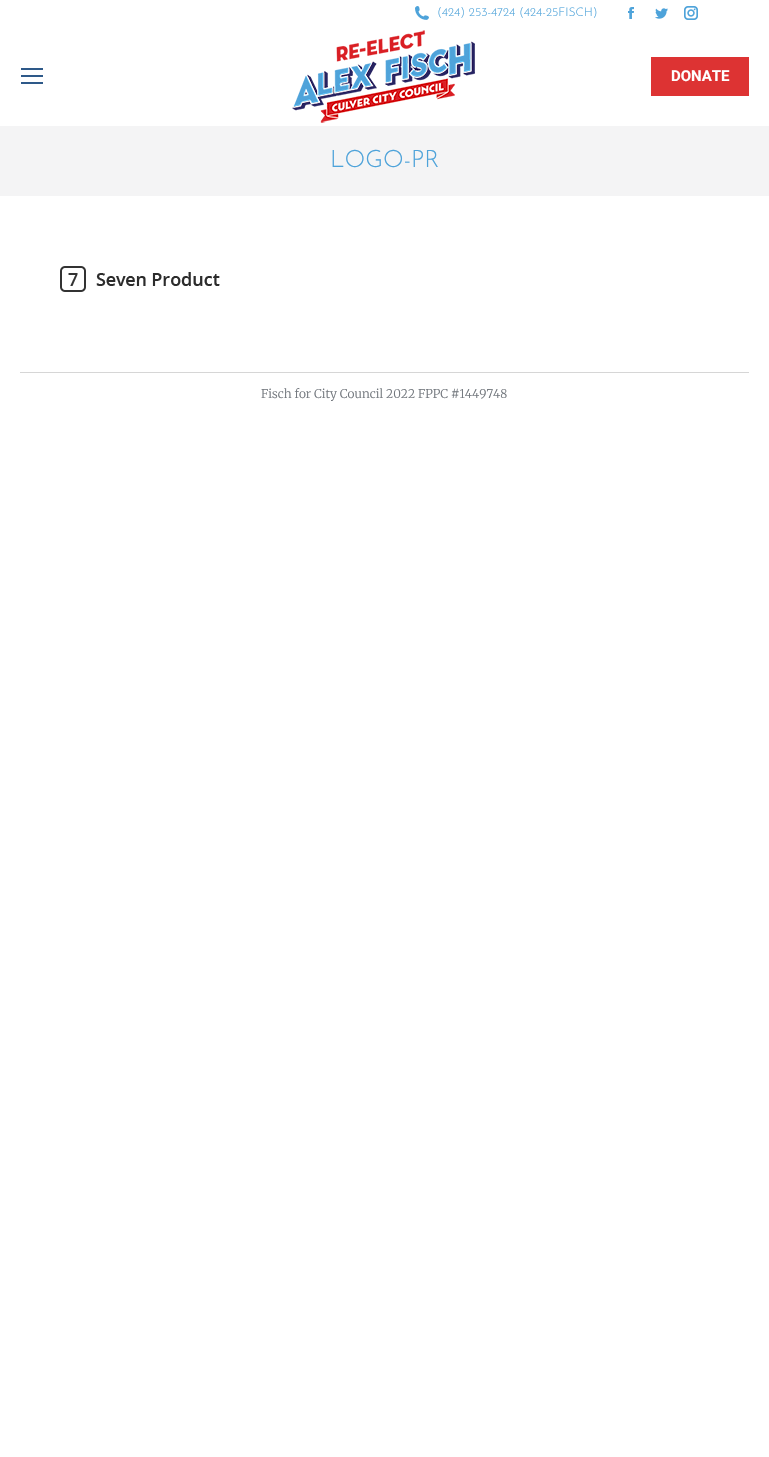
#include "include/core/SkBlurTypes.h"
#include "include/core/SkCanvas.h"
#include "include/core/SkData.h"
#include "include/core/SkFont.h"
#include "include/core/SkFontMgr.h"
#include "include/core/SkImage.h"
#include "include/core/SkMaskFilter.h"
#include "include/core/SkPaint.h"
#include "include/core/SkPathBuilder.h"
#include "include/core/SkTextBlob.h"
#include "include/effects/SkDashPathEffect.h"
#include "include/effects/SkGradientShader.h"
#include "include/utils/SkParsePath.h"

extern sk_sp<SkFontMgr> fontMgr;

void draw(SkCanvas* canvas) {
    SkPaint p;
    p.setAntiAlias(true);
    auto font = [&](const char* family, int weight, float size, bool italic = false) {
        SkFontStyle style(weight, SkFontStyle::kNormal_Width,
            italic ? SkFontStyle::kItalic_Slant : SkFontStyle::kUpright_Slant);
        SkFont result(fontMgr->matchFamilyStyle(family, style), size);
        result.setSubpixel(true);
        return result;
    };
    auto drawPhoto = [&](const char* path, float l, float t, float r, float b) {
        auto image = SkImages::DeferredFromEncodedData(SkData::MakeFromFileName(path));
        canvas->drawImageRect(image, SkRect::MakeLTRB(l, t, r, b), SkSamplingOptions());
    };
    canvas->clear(0xFFFFFFFF);
    drawPhoto("media/1.png", 415, 6, 429, 20);
    auto font1 = font("Josefin Sans", 300, 12);
    p.setColor(0xFF4EA3DA);
    canvas->drawString("(424) 253-4724 (424-25FISCH)", 437, 16, font1, p);
    drawPhoto("media/2.png", 628, 7, 634, 19);
    drawPhoto("media/3.png", 655, 8, 668, 19);
    drawPhoto("media/4.png", 684, 6, 698, 20);
    {
        const struct { float l, t, r, b; SkColor color; } items[] = {
            {21, 68, 43, 70, 0xFF2E5989},
            {21, 75, 43, 77, 0xFF2E5989},
            {21, 82, 43, 84, 0xFF2E5989},
        };
        for (auto [l, t, r, b, color] : items) {
            p.setColor(color);
            canvas->drawRect(SkRect::MakeLTRB(l, t, r, b), p);
        }
    }
    drawPhoto("media/5.png", 292, 30, 475, 123);
    p.setColor(0xFFDD3333);
    canvas->drawRect(SkRect::MakeLTRB(651, 57, 749, 96), p);
    auto font2 = font("Roboto", 700, 15);
    p.setColor(0xFFFFFFFF);
    canvas->drawString("DONATE", 671, 81, font2, p);
    p.setColor(0xFFF4F4F5);
    canvas->drawRect(SkRect::MakeLTRB(0, 126, 769, 196), p);
    auto font3 = font("Josefin Sans", 300, 24);
    p.setColor(0xFF4EA3DA);
    canvas->drawString("LOGO-PR", 330, 167, font3, p);
    drawPhoto("media/6.png", 60, 266, 220, 292);
    p.setColor(0xFFD6D6D6);
    canvas->drawRect(SkRect::MakeLTRB(20, 372, 749, 373), p);
    auto font4 = font("Merriweather", 300, 12);
    p.setColor(0xFF72777D);
    canvas->drawString("Fisch for City Council 2022 FPPC #1449748", 261, 398, font4, p);
}
